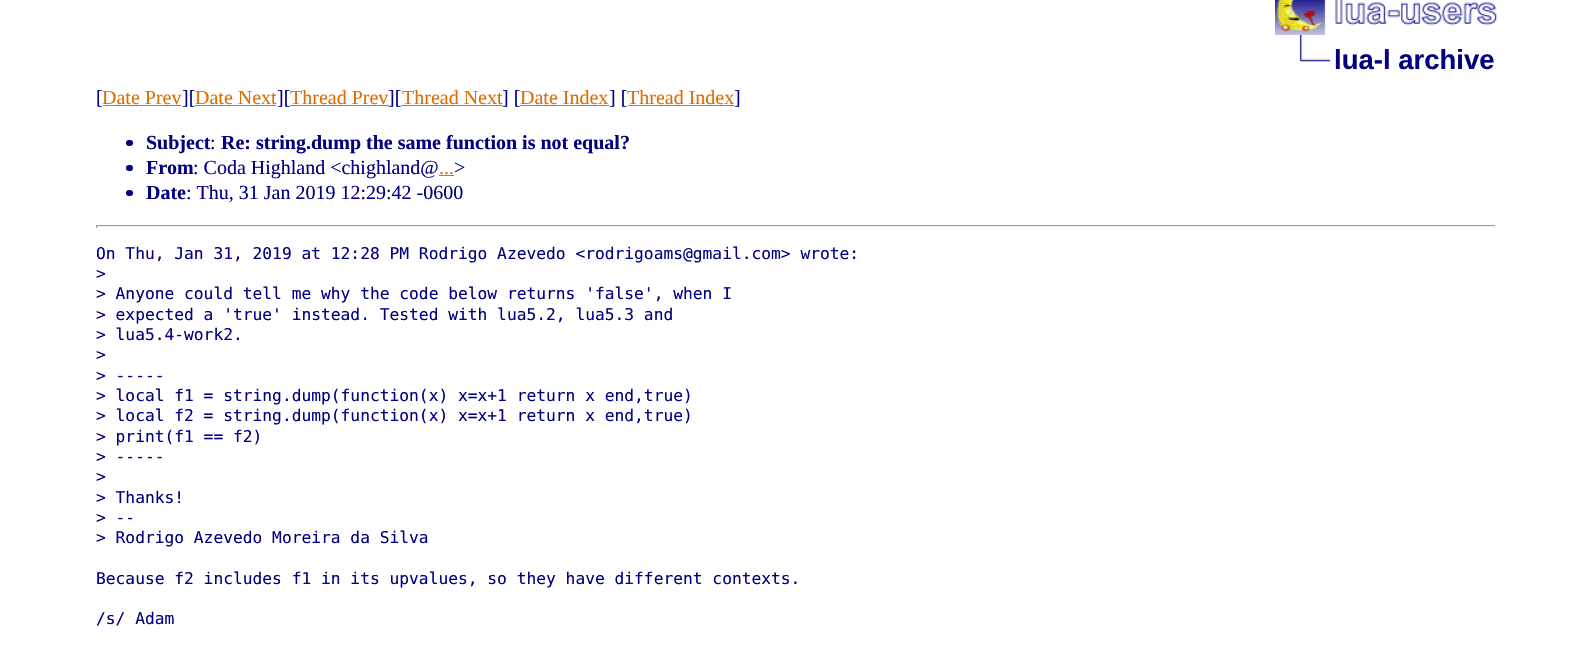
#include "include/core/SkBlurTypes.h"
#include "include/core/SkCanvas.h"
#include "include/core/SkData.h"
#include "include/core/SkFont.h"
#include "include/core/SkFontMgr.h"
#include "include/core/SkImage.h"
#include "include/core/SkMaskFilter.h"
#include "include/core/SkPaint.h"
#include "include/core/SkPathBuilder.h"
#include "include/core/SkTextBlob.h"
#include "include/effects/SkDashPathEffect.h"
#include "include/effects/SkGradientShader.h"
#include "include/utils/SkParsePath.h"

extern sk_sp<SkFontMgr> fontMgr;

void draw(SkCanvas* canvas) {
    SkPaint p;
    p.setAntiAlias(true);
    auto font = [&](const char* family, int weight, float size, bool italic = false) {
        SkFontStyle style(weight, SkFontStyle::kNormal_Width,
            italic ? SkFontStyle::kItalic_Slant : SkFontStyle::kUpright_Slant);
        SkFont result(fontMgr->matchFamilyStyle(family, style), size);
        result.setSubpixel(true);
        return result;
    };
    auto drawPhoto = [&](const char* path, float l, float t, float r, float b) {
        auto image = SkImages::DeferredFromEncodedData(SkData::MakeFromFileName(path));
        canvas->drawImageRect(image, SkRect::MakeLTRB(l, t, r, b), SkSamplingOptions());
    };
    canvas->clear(0xFFFFFFFF);
    drawPhoto("media/1.png", 1275, 0, 1497, 35);
    drawPhoto("media/2.png", 1299, 35, 1331, 62);
    auto font1 = font("Liberation Sans", 700, 27.5f);
    p.setColor(0xFF000080);
    canvas->drawString("lua-l archive", 1334, 69, font1, p);
    auto font2 = font("Liberation Serif", 400, 20);
    canvas->drawString("[", 96, 104, font2, p);
    p.setColor(0xFFDF6C00);
    canvas->drawString("Date Prev", 102, 104, font2, p);
    canvas->drawRect(SkRect::MakeLTRB(103, 105, 181, 106), p);
    p.setColor(0xFF000080);
    canvas->drawString("][", 182, 104, font2, p);
    p.setColor(0xFFDF6C00);
    canvas->drawString("Date Next", 195, 104, font2, p);
    canvas->drawRect(SkRect::MakeLTRB(195, 105, 276, 106), p);
    p.setColor(0xFF000080);
    canvas->drawString("][", 277, 104, font2, p);
    p.setColor(0xFFDF6C00);
    canvas->drawString("Thread Prev", 290, 104, font2, p);
    canvas->drawRect(SkRect::MakeLTRB(290, 105, 389, 106), p);
    p.setColor(0xFF000080);
    canvas->drawString("][", 388, 104, font2, p);
    p.setColor(0xFFDF6C00);
    canvas->drawString("Thread Next", 402, 104, font2, p);
    canvas->drawRect(SkRect::MakeLTRB(401, 105, 503, 106), p);
    p.setColor(0xFF000080);
    canvas->drawString("] [", 502, 104, font2, p);
    p.setColor(0xFFDF6C00);
    canvas->drawString("Date Index", 520, 104, font2, p);
    canvas->drawRect(SkRect::MakeLTRB(520, 105, 609, 106), p);
    p.setColor(0xFF000080);
    canvas->drawString("] [", 609, 104, font2, p);
    p.setColor(0xFFDF6C00);
    canvas->drawString("Thread Index", 627, 104, font2, p);
    canvas->drawRect(SkRect::MakeLTRB(628, 105, 734, 106), p);
    p.setColor(0xFF000080);
    canvas->drawString("]", 734, 104, font2, p);
    canvas->drawRoundRect(SkRect::MakeLTRB(126, 140, 133, 146), 3, 3, p);
    auto font3 = font("Liberation Serif", 700, 20);
    canvas->drawString("Subject", 146, 149, font3, p);
    canvas->drawString(":", 210, 149, font2, p);
    canvas->drawString("Re: string.dump the same function is not equal?", 221, 149, font3, p);
    canvas->drawRoundRect(SkRect::MakeLTRB(126, 165, 133, 171), 3, 3, p);
    canvas->drawString("From", 146, 174, font3, p);
    canvas->drawString(": Coda Highland <chighland@", 193, 174, font2, p);
    canvas->drawString(">", 454, 174, font2, p);
    p.setColor(0xFFDF6C00);
    canvas->drawString("...", 439, 174, font2, p);
    canvas->drawRect(SkRect::MakeLTRB(439, 175, 454, 176), p);
    p.setColor(0xFF000080);
    canvas->drawRoundRect(SkRect::MakeLTRB(126, 190, 133, 196), 3, 3, p);
    canvas->drawString("Date", 146, 199, font3, p);
    canvas->drawString(": Thu, 31 Jan 2019 12:29:42 -0600", 186, 199, font2, p);
    {
        const struct { float l, t, r, b; SkColor color; } items[] = {
            {96, 225, 1496, 226, 0xFF9F9F9F},
            {1495, 225, 1496, 228, 0xFFEEEEEE},
            {96, 226, 1496, 227, 0xFFEEEEEE},
            {96, 225, 97, 228, 0xFF9F9F9F},
        };
        for (auto [l, t, r, b, color] : items) {
            p.setColor(color);
            canvas->drawRect(SkRect::MakeLTRB(l, t, r, b), p);
        }
    }
    auto font4 = font("DejaVu Sans Mono", 400, 16.25f);
    p.setColor(0xFF000080);
    {
        const struct { const char* s; float x, y; } items[] = {
            {"On Thu, Jan 31, 2019 at 12:28 PM Rodrigo Azevedo <rodrigoams@gmail.com> wrote:", 96, 259},
            {">", 96, 279},
            {"> Anyone could tell me why the code below returns 'false', when I", 96, 299},
            {"> expected a 'true' instead. Tested with lua5.2, lua5.3 and", 96, 320},
            {"> lua5.4-work2.", 96, 340},
            {">", 96, 360},
            {"> -----", 96, 381},
            {"> local f1 = string.dump(function(x) x=x+1 return x end,true)", 96, 401},
            {"> local f2 = string.dump(function(x) x=x+1 return x end,true)", 96, 421},
            {"> print(f1 == f2)", 96, 442},
            {"> -----", 96, 462},
            {">", 96, 482},
            {"> Thanks!", 96, 503},
            {"> --", 96, 523},
            {"> Rodrigo Azevedo Moreira da Silva", 96, 543},
            {"Because f2 includes f1 in its upvalues, so they have different contexts.", 96, 584},
            {"/s/ Adam", 96, 624},
        };
        for (auto [s, x, y] : items) {
            canvas->drawString(s, x, y, font4, p);
        }
    }
}
